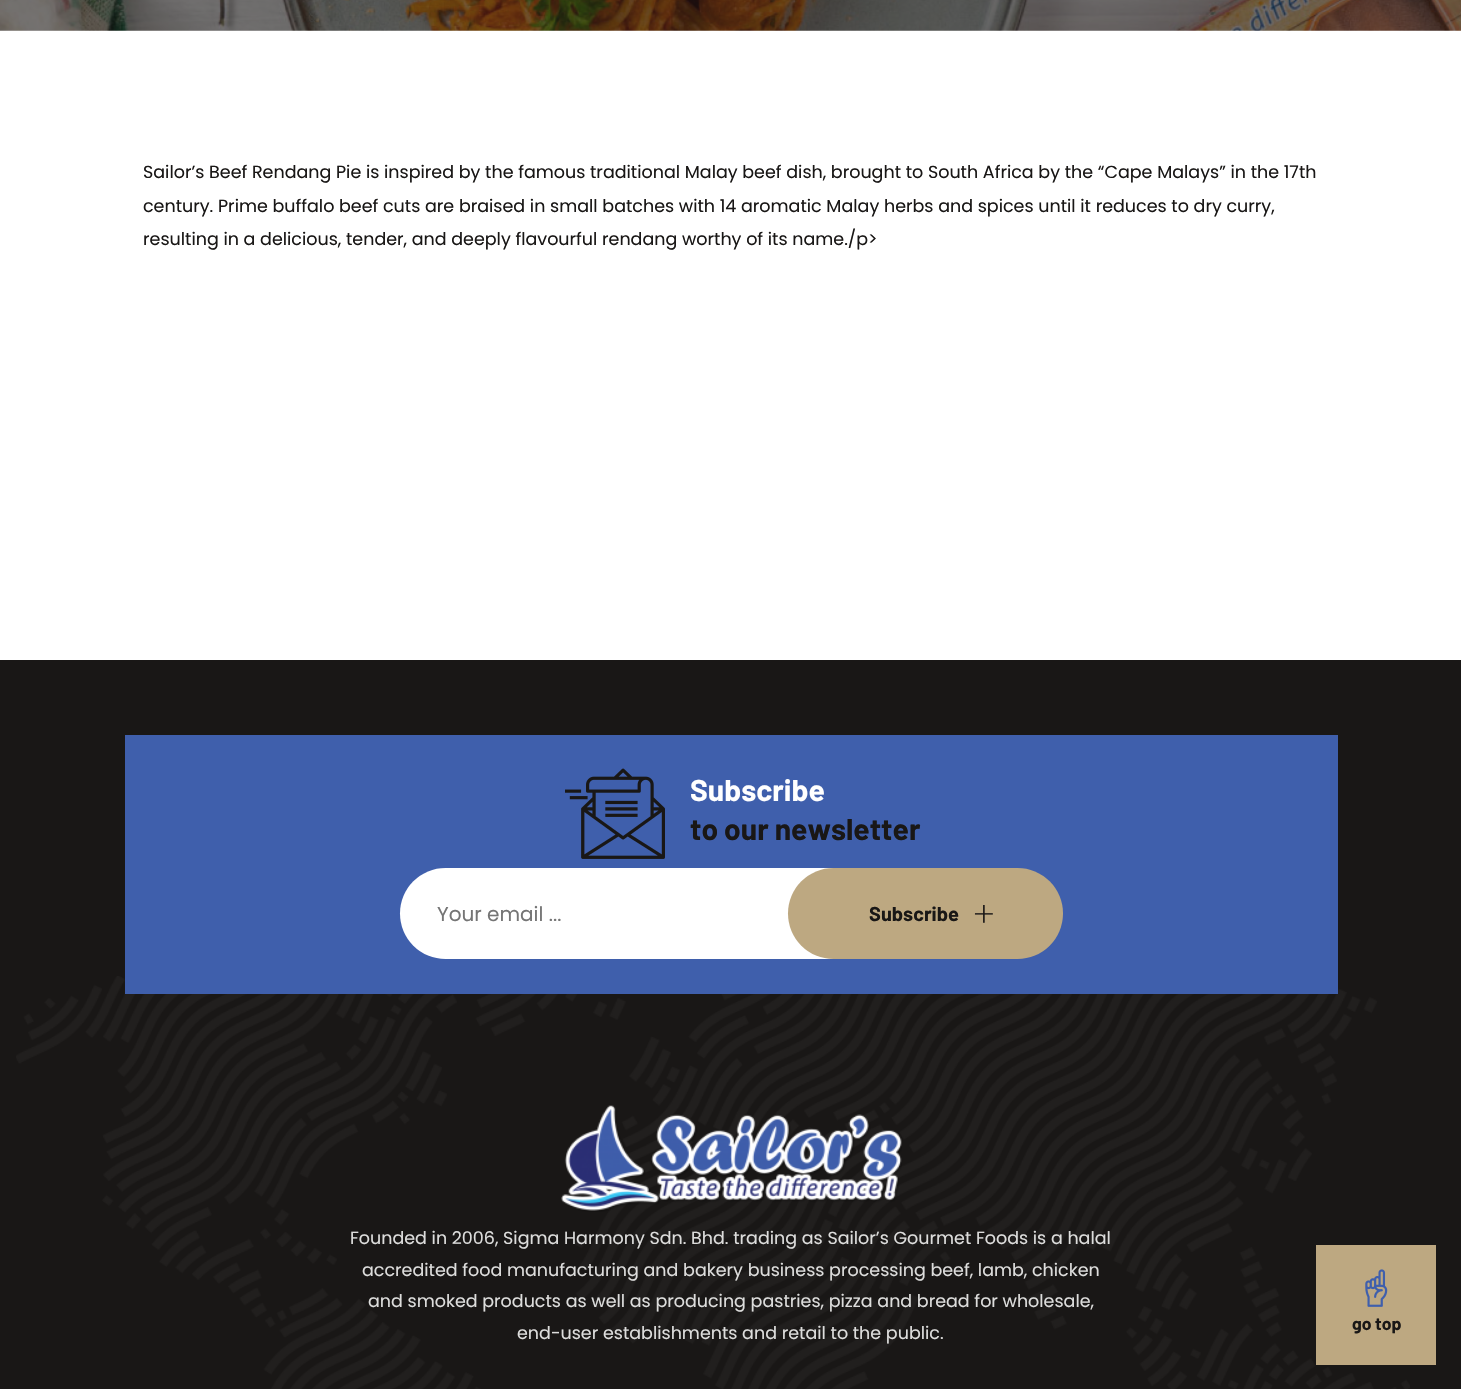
#include "include/core/SkBlurTypes.h"
#include "include/core/SkCanvas.h"
#include "include/core/SkData.h"
#include "include/core/SkFont.h"
#include "include/core/SkFontMgr.h"
#include "include/core/SkImage.h"
#include "include/core/SkMaskFilter.h"
#include "include/core/SkPaint.h"
#include "include/core/SkPathBuilder.h"
#include "include/core/SkTextBlob.h"
#include "include/effects/SkDashPathEffect.h"
#include "include/effects/SkGradientShader.h"
#include "include/utils/SkParsePath.h"

extern sk_sp<SkFontMgr> fontMgr;

void draw(SkCanvas* canvas) {
    SkPaint p;
    p.setAntiAlias(true);
    auto font = [&](const char* family, int weight, float size, bool italic = false) {
        SkFontStyle style(weight, SkFontStyle::kNormal_Width,
            italic ? SkFontStyle::kItalic_Slant : SkFontStyle::kUpright_Slant);
        SkFont result(fontMgr->matchFamilyStyle(family, style), size);
        result.setSubpixel(true);
        return result;
    };
    auto drawPhoto = [&](const char* path, float l, float t, float r, float b) {
        auto image = SkImages::DeferredFromEncodedData(SkData::MakeFromFileName(path));
        canvas->drawImageRect(image, SkRect::MakeLTRB(l, t, r, b), SkSamplingOptions());
    };
    canvas->clear(0xFFFFFFFF);
    drawPhoto("media/1.png", 0, 0, 1461, 31);
    auto font1 = font("Poppins", 400, 17.5f);
    p.setColor(0xFF191716);
    {
        const struct { const char* s; float x, y; } items[] = {
            {"Sailor’s Beef Rendang Pie is inspired by the famous traditional Malay beef dish, brought to South Africa by the “Cape Malays” in the 17th", 143, 178},
            {"century. Prime buffalo beef cuts are braised in small batches with 14 aromatic Malay herbs and spices until it reduces to dry curry,", 143, 212},
            {"resulting in a delicious, tender, and deeply flavourful rendang worthy of its name./p>", 143, 245},
        };
        for (auto [s, x, y] : items) {
            canvas->drawString(s, x, y, font1, p);
        }
    }
    canvas->drawRect(SkRect::MakeLTRB(0, 660, 1461, 1389), p);
    drawPhoto("media/2.png", 16, 976, 1410, 1389);
    p.setColor(0xFF3F5FAC);
    canvas->drawRect(SkRect::MakeLTRB(125, 735, 1338, 994), p);
    drawPhoto("media/3.png", 565, 768, 665, 859);
    auto font2 = font("Barlow", 700, 30);
    p.setColor(0xFFFFFFFF);
    canvas->drawString("Subscribe", 690, 801, font2, p);
    p.setColor(0xFF191716);
    canvas->drawString("to our newsletter", 690, 840, font2, p);
    p.setColor(0xFFFFFFFF);
    canvas->drawRoundRect(SkRect::MakeLTRB(400, 868, 888, 959), 45.5f, 45.5f, p);
    auto font3 = font("Poppins", 400, 20);
    p.setColor(0xFF757575);
    canvas->drawString("Your email ...", 437, 921, font3, p);
    p.setColor(0xFFBDA881);
    canvas->drawRoundRect(SkRect::MakeLTRB(788, 868, 1063, 959), 45.5f, 45.5f, p);
    auto font4 = font("Barlow", 700, 20);
    p.setColor(0xFF191716);
    canvas->drawString("Subscribe", 869, 921, font4, p);
    auto font5 = font("Poppins", 200, 35);
    canvas->drawString("+", 973, 927, font5, p);
    drawPhoto("media/4.png", 561, 1105, 902, 1212);
    p.setColor(0xFFDDDDDC);
    {
        const struct { const char* s; float x, y; } items[] = {
            {"Founded in 2006, Sigma Harmony Sdn. Bhd. trading as Sailor’s Gourmet Foods is a halal", 350, 1244},
            {"accredited food manufacturing and bakery business processing beef, lamb, chicken", 362, 1276},
            {"and smoked products as well as producing pastries, pizza and bread for wholesale,", 368, 1307},
            {"end-user establishments and retail to the public.", 517, 1339},
        };
        for (auto [s, x, y] : items) {
            canvas->drawString(s, x, y, font1, p);
        }
    }
    p.setColor(0xFFBDA881);
    canvas->drawRect(SkRect::MakeLTRB(1316, 1245, 1436, 1365), p);
    drawPhoto("media/5.png", 1365, 1269, 1388, 1307);
    auto font6 = font("Barlow", 700, 17.5f);
    p.setColor(0xFF191716);
    canvas->drawString("go top", 1352, 1330, font6, p);
}
